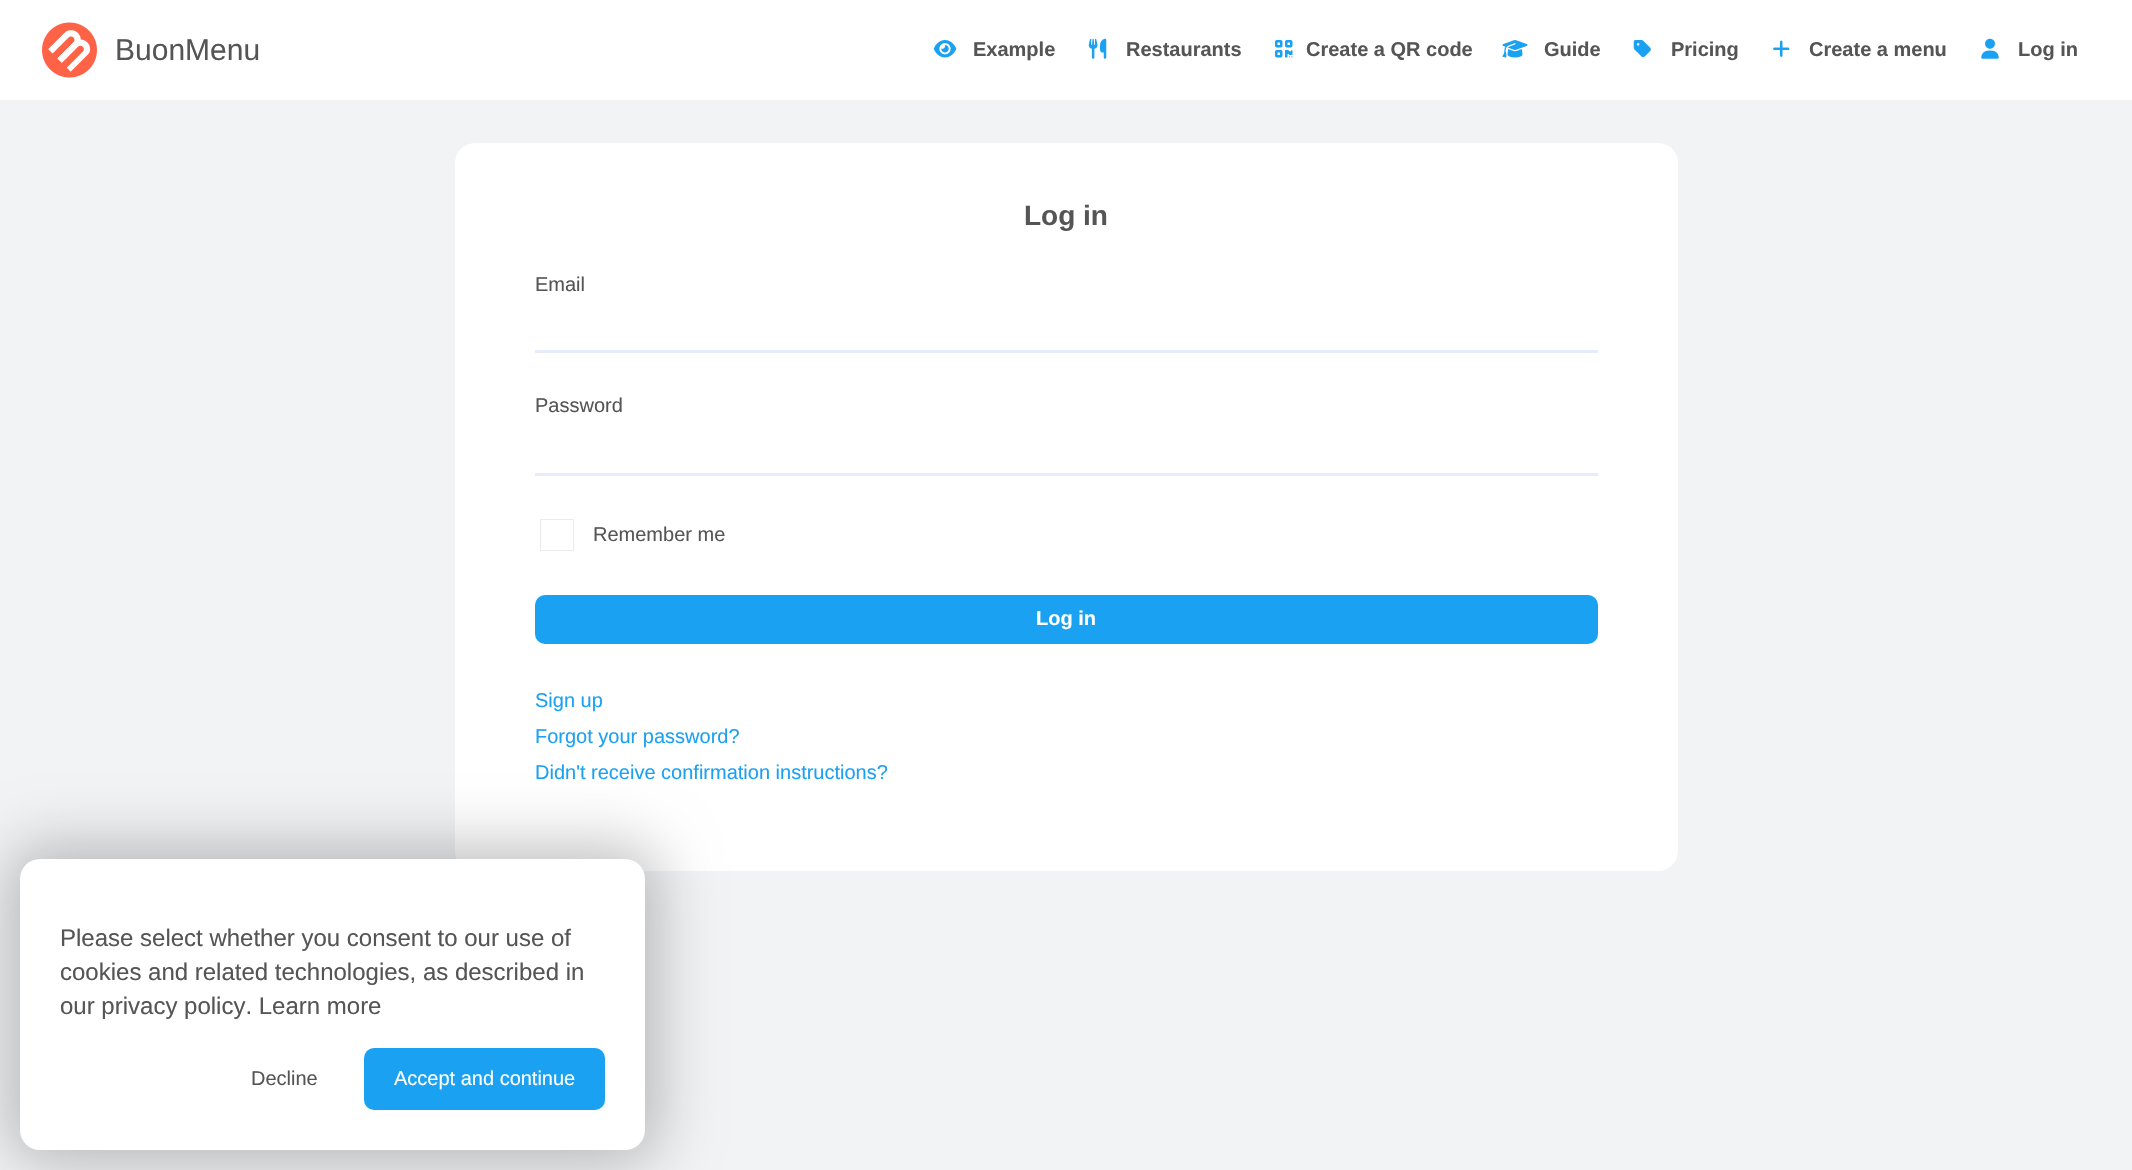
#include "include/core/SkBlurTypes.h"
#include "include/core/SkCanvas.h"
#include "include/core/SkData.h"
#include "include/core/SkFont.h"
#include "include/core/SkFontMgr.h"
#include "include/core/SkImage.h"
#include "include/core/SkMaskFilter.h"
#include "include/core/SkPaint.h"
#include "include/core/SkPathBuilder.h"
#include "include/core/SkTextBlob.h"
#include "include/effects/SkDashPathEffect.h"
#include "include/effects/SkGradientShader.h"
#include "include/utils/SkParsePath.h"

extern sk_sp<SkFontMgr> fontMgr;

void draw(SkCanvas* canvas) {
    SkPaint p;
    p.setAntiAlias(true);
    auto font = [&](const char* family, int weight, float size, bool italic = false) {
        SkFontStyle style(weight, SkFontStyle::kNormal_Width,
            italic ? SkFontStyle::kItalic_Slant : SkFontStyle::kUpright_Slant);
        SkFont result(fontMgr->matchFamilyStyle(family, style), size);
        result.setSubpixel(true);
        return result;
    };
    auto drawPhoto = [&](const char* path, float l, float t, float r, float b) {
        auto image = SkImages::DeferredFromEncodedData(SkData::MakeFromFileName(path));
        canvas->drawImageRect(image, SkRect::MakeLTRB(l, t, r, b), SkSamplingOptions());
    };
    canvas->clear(0xFFF1F3F5);
    p.setColor(0xFFFFFFFF);
    canvas->drawRect(SkRect::MakeLTRB(0, 0, 2132, 100), p);
    drawPhoto("media/1.png", 42, 22, 97, 78);
    auto font1 = font("Liberation Sans", 400, 30);
    p.setColor(0xFF555555);
    canvas->drawString("BuonMenu", 115, 60, font1, p);
    drawPhoto("media/2.png", 933, 40, 957, 58);
    auto font2 = font("Liberation Sans", 700, 20);
    canvas->drawString("Example", 973, 56, font2, p);
    drawPhoto("media/3.png", 1088, 38, 1107, 59);
    canvas->drawString("Restaurants", 1126, 56, font2, p);
    drawPhoto("media/4.png", 1275, 40, 1293, 58);
    canvas->drawString("Create a QR code", 1306, 56, font2, p);
    drawPhoto("media/5.png", 1502, 40, 1528, 58);
    canvas->drawString("Guide", 1544, 56, font2, p);
    drawPhoto("media/6.png", 1633, 40, 1651, 58);
    canvas->drawString("Pricing", 1671, 56, font2, p);
    drawPhoto("media/7.png", 1773, 40, 1790, 57);
    canvas->drawString("Create a menu", 1809, 56, font2, p);
    drawPhoto("media/8.png", 1981, 38, 1999, 59);
    canvas->drawString("Log in", 2018, 56, font2, p);
    p.setColor(0xFFFFFFFF);
    canvas->drawRoundRect(SkRect::MakeLTRB(455, 143, 1678, 871), 20, 20, p);
    auto font3 = font("Liberation Sans", 700, 28);
    p.setColor(0xFF555555);
    canvas->drawString("Log in", 1024, 225, font3, p);
    auto font4 = font("Liberation Sans", 400, 20);
    canvas->drawString("Email", 535, 291, font4, p);
    p.setColor(0xFFE6ECFD);
    canvas->drawRect(SkRect::MakeLTRB(535, 350, 1598, 353), p);
    p.setColor(0xFF555555);
    canvas->drawString("Password", 535, 412, font4, p);
    p.setColor(0xFFE6ECFD);
    canvas->drawRect(SkRect::MakeLTRB(535, 473, 1598, 476), p);
    p.setStyle(SkPaint::kStroke_Style);
    p.setStrokeWidth(1);
    p.setColor(0xFFEBEBEB);
    canvas->drawRect(SkRect::MakeLTRB(540.5f, 519.5f, 573.5f, 550.5f), p);
    p.setStyle(SkPaint::kFill_Style);
    p.setColor(0xFF555555);
    canvas->drawString("Remember me", 593, 541, font4, p);
    p.setColor(0xFF1BA1F1);
    canvas->drawRoundRect(SkRect::MakeLTRB(535, 595, 1598, 644), 10, 10, p);
    p.setColor(0xFFFFFFFF);
    canvas->drawString("Log in", 1036, 625, font2, p);
    p.setColor(0xFF1BA1F1);
    {
        const struct { const char* s; float x, y; } items[] = {
            {"Sign up", 535, 707},
            {"Forgot your password?", 535, 743},
            {"Didn't receive confirmation instructions?", 535, 779},
        };
        for (auto [s, x, y] : items) {
            canvas->drawString(s, x, y, font4, p);
        }
    }
    p.setColor(0x40000000);
    p.setMaskFilter(SkMaskFilter::MakeBlur(kNormal_SkBlurStyle, 31));
    canvas->drawRoundRect(SkRect::MakeLTRB(8, 846, 658, 1163), 33, 33, p);
    p.setMaskFilter(nullptr);
    p.setColor(0xFFFFFFFF);
    canvas->drawRoundRect(SkRect::MakeLTRB(20, 859, 645, 1150), 20, 20, p);
    auto font5 = font("Liberation Sans", 400, 24);
    p.setColor(0xFF555555);
    {
        const struct { const char* s; float x, y; } items[] = {
            {"Please select whether you consent to our use of", 60, 946},
            {"cookies and related technologies, as described in", 60, 980},
            {"our privacy policy. Learn more", 60, 1014},
        };
        for (auto [s, x, y] : items) {
            canvas->drawString(s, x, y, font5, p);
        }
    }
    canvas->drawString("Decline", 251, 1085, font4, p);
    p.setColor(0xFF1BA1F1);
    canvas->drawRoundRect(SkRect::MakeLTRB(364, 1048, 605, 1110), 10, 10, p);
    p.setColor(0xFFFFFFFF);
    canvas->drawString("Accept and continue", 394, 1085, font4, p);
}
